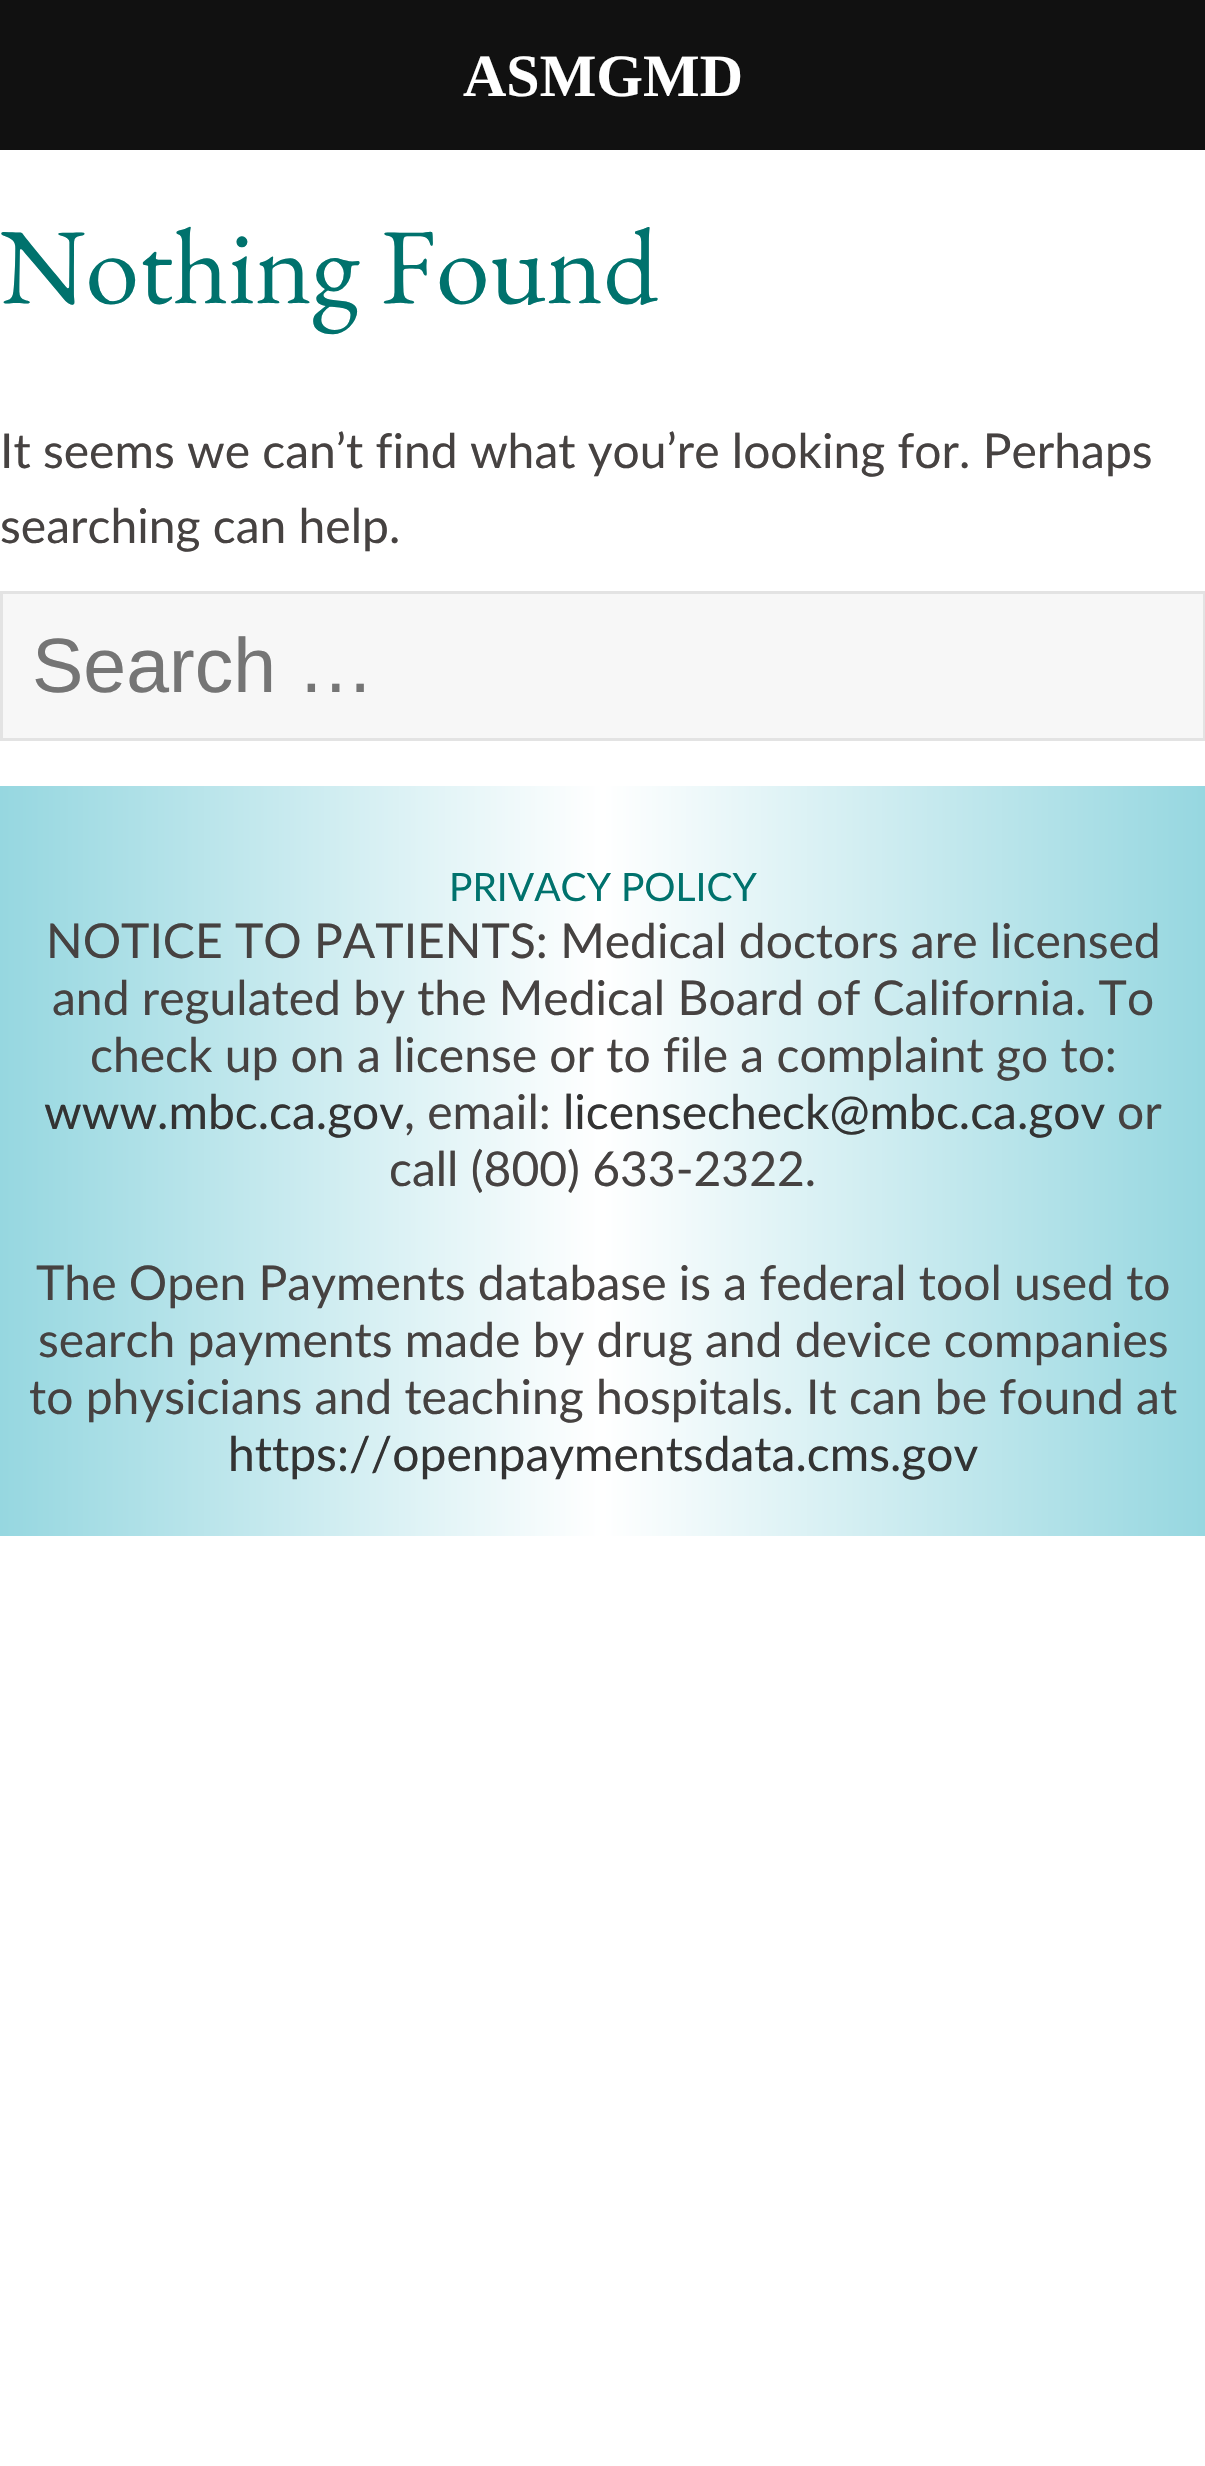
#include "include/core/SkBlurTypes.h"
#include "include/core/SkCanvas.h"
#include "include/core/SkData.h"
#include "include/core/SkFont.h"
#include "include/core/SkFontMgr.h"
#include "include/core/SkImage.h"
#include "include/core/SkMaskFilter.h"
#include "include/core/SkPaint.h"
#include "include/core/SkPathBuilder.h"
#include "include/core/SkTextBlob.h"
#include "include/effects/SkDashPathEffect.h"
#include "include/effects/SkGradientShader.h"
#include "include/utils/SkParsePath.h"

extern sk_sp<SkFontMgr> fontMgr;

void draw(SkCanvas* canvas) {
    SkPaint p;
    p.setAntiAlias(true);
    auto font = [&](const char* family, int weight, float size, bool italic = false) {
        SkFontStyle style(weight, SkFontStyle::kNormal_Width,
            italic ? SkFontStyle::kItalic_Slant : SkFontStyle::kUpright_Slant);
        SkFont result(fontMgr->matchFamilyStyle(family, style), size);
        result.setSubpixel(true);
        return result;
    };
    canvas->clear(0xFFFFFFFF);
    p.setColor(0xFF111111);
    canvas->drawRect(SkRect::MakeLTRB(0, 0, 1205, 150), p);
    auto font1 = font("Liberation Serif", 700, 60);
    p.setColor(0xFFFFFFFF);
    canvas->drawString("ASMGMD", 463, 96, font1, p);
    auto font2 = font("EB Garamond", 400, 108);
    p.setColor(0xFF00726D);
    canvas->drawString("Nothing Found", 0, 303, font2, p);
    auto font3 = font("Lato", 400, 48);
    p.setColor(0xFF464241);
    canvas->drawString("It seems we can’t find what you’re looking for. Perhaps", 0, 468, font3, p);
    canvas->drawString("searching can help.", 0, 543, font3, p);
    p.setColor(0xFFF7F7F7);
    canvas->drawRect(SkRect::MakeLTRB(1.5f, 592.5f, 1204.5f, 739.5f), p);
    p.setStyle(SkPaint::kStroke_Style);
    p.setStrokeWidth(3);
    p.setColor(0xFFE3E3E3);
    canvas->drawRect(SkRect::MakeLTRB(1.5f, 592.5f, 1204.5f, 739.5f), p);
    auto font4 = font("Liberation Sans", 400, 77);
    p.setStyle(SkPaint::kFill_Style);
    p.setColor(0xFF757575);
    canvas->drawString("Search …", 32, 692, font4, p);
    {
        const SkColor colors[] = {0xFF96D7E0, 0xFFFFFFFF, 0xFF96D7E0};
        const float stops[] = {0, 0.5f, 1};
        const SkPoint ends[] = {{0, 1161}, {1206, 1161}};
        p.setShader(SkGradientShader::MakeLinear(ends, colors, stops, 3, SkTileMode::kClamp));
        p.setAlpha(255);
    }
    canvas->drawRect(SkRect::MakeLTRB(0, 786, 1205, 1536), p);
    auto font5 = font("Lato", 400, 39);
    p.setShader(nullptr);
    p.setColor(0xFF00726D);
    canvas->drawString("PRIVACY POLICY", 449, 901, font5, p);
    p.setColor(0xFF464241);
    {
        const struct { const char* s; float x, y; } items[] = {
            {"NOTICE TO PATIENTS: Medical doctors are licensed", 46, 958},
            {"and regulated by the Medical Board of California. To", 52, 1015},
            {"check up on a license or to file a complaint go to:", 90, 1072},
        };
        for (auto [s, x, y] : items) {
            canvas->drawString(s, x, y, font3, p);
        }
    }
    p.setColor(0xFF333333);
    canvas->drawString("www.mbc.ca.gov", 44, 1129, font3, p);
    p.setColor(0xFF464241);
    canvas->drawString(", email:", 404, 1129, font3, p);
    p.setColor(0xFF333333);
    canvas->drawString("licensecheck@mbc.ca.gov", 563, 1129, font3, p);
    p.setColor(0xFF464241);
    {
        const struct { const char* s; float x, y; } items[] = {
            {"or", 1117, 1129},
            {"call (800) 633-2322.", 389, 1186},
            {"The Open Payments database is a federal tool used to", 36, 1300},
            {"search payments made by drug and device companies", 38, 1357},
            {"to physicians and teaching hospitals. It can be found at", 29, 1414},
        };
        for (auto [s, x, y] : items) {
            canvas->drawString(s, x, y, font3, p);
        }
    }
    p.setColor(0xFF333333);
    canvas->drawString("https://openpaymentsdata.cms.gov", 228, 1471, font3, p);
}
